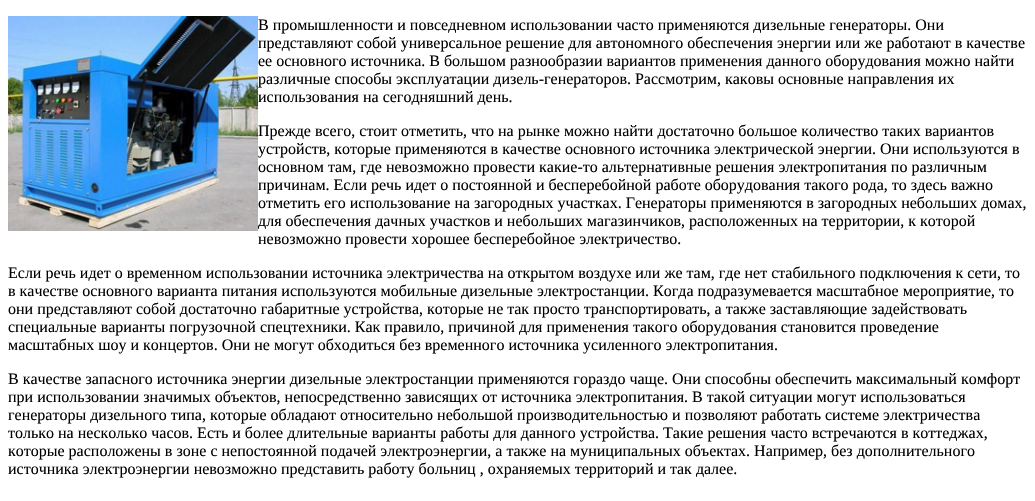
#include "include/core/SkBlurTypes.h"
#include "include/core/SkCanvas.h"
#include "include/core/SkData.h"
#include "include/core/SkFont.h"
#include "include/core/SkFontMgr.h"
#include "include/core/SkImage.h"
#include "include/core/SkMaskFilter.h"
#include "include/core/SkPaint.h"
#include "include/core/SkPathBuilder.h"
#include "include/core/SkTextBlob.h"
#include "include/effects/SkDashPathEffect.h"
#include "include/effects/SkGradientShader.h"
#include "include/utils/SkParsePath.h"

extern sk_sp<SkFontMgr> fontMgr;

void draw(SkCanvas* canvas) {
    SkPaint p;
    p.setAntiAlias(true);
    auto font = [&](const char* family, int weight, float size, bool italic = false) {
        SkFontStyle style(weight, SkFontStyle::kNormal_Width,
            italic ? SkFontStyle::kItalic_Slant : SkFontStyle::kUpright_Slant);
        SkFont result(fontMgr->matchFamilyStyle(family, style), size);
        result.setSubpixel(true);
        return result;
    };
    auto drawPhoto = [&](const char* path, float l, float t, float r, float b) {
        auto image = SkImages::DeferredFromEncodedData(SkData::MakeFromFileName(path));
        canvas->drawImageRect(image, SkRect::MakeLTRB(l, t, r, b), SkSamplingOptions());
    };
    canvas->clear(0xFFFFFFFF);
    drawPhoto("media/1.png", 8, 16, 258, 231);
    auto font1 = font("Liberation Serif", 400, 16);
    p.setColor(0xFF000000);
    {
        const struct { const char* s; float x, y; } items[] = {
            {"В промышленности и повседневном использовании часто применяются дизельные генераторы. Они", 258, 30},
            {"представляют собой универсальное решение для автономного обеспечения энергии или же работают в качестве", 258, 48},
            {"ее основного источника. В большом разнообразии вариантов применения данного оборудования можно найти", 258, 66},
            {"различные способы эксплуатации дизель-генераторов. Рассмотрим, каковы основные направления их", 258, 84},
            {"использования на сегодняшний день.", 258, 102},
            {"Прежде всего, стоит отметить, что на рынке можно найти достаточно большое количество таких вариантов", 258, 136},
            {"устройств, которые применяются в качестве основного источника электрической энергии. Они используются в", 258, 154},
            {"основном там, где невозможно провести какие-то альтернативные решения электропитания по различным", 258, 172},
            {"причинам. Если речь идет о постоянной и бесперебойной работе оборудования такого рода, то здесь важно", 258, 190},
            {"отметить его использование на загородных участках. Генераторы применяются в загородных небольших домах,", 258, 208},
            {"для обеспечения дачных участков и небольших магазинчиков, расположенных на территории, к которой", 258, 226},
            {"невозможно провести хорошее бесперебойное электричество.", 258, 244},
            {"Если речь идет о временном использовании источника электричества на открытом воздухе или же там, где нет стабильного подключения к сети, то", 8, 278},
            {"в качестве основного варианта питания используются мобильные дизельные электростанции. Когда подразумевается масштабное мероприятие, то", 8, 296},
            {"они представляют собой достаточно габаритные устройства, которые не так просто транспортировать, а также заставляющие задействовать", 8, 314},
            {"специальные варианты погрузочной спецтехники. Как правило, причиной для применения такого оборудования становится проведение", 8, 332},
            {"масштабных шоу и концертов. Они не могут обходиться без временного источника усиленного электропитания.", 8, 350},
            {"В качестве запасного источника энергии дизельные электростанции применяются гораздо чаще. Они способны обеспечить максимальный комфорт", 8, 384},
            {"при использовании значимых объектов, непосредственно зависящих от источника электропитания. В такой ситуации могут использоваться", 8, 402},
            {"генераторы дизельного типа, которые обладают относительно небольшой производительностью и позволяют работать системе электричества", 8, 420},
            {"только на несколько часов. Есть и более длительные варианты работы для данного устройства. Такие решения часто встречаются в коттеджах,", 8, 438},
            {"которые расположены в зоне с непостоянной подачей электроэнергии, а также на муниципальных объектах. Например, без дополнительного", 8, 456},
            {"источника электроэнергии невозможно представить работу больниц , охраняемых территорий и так далее.", 8, 474},
        };
        for (auto [s, x, y] : items) {
            canvas->drawString(s, x, y, font1, p);
        }
    }
}
